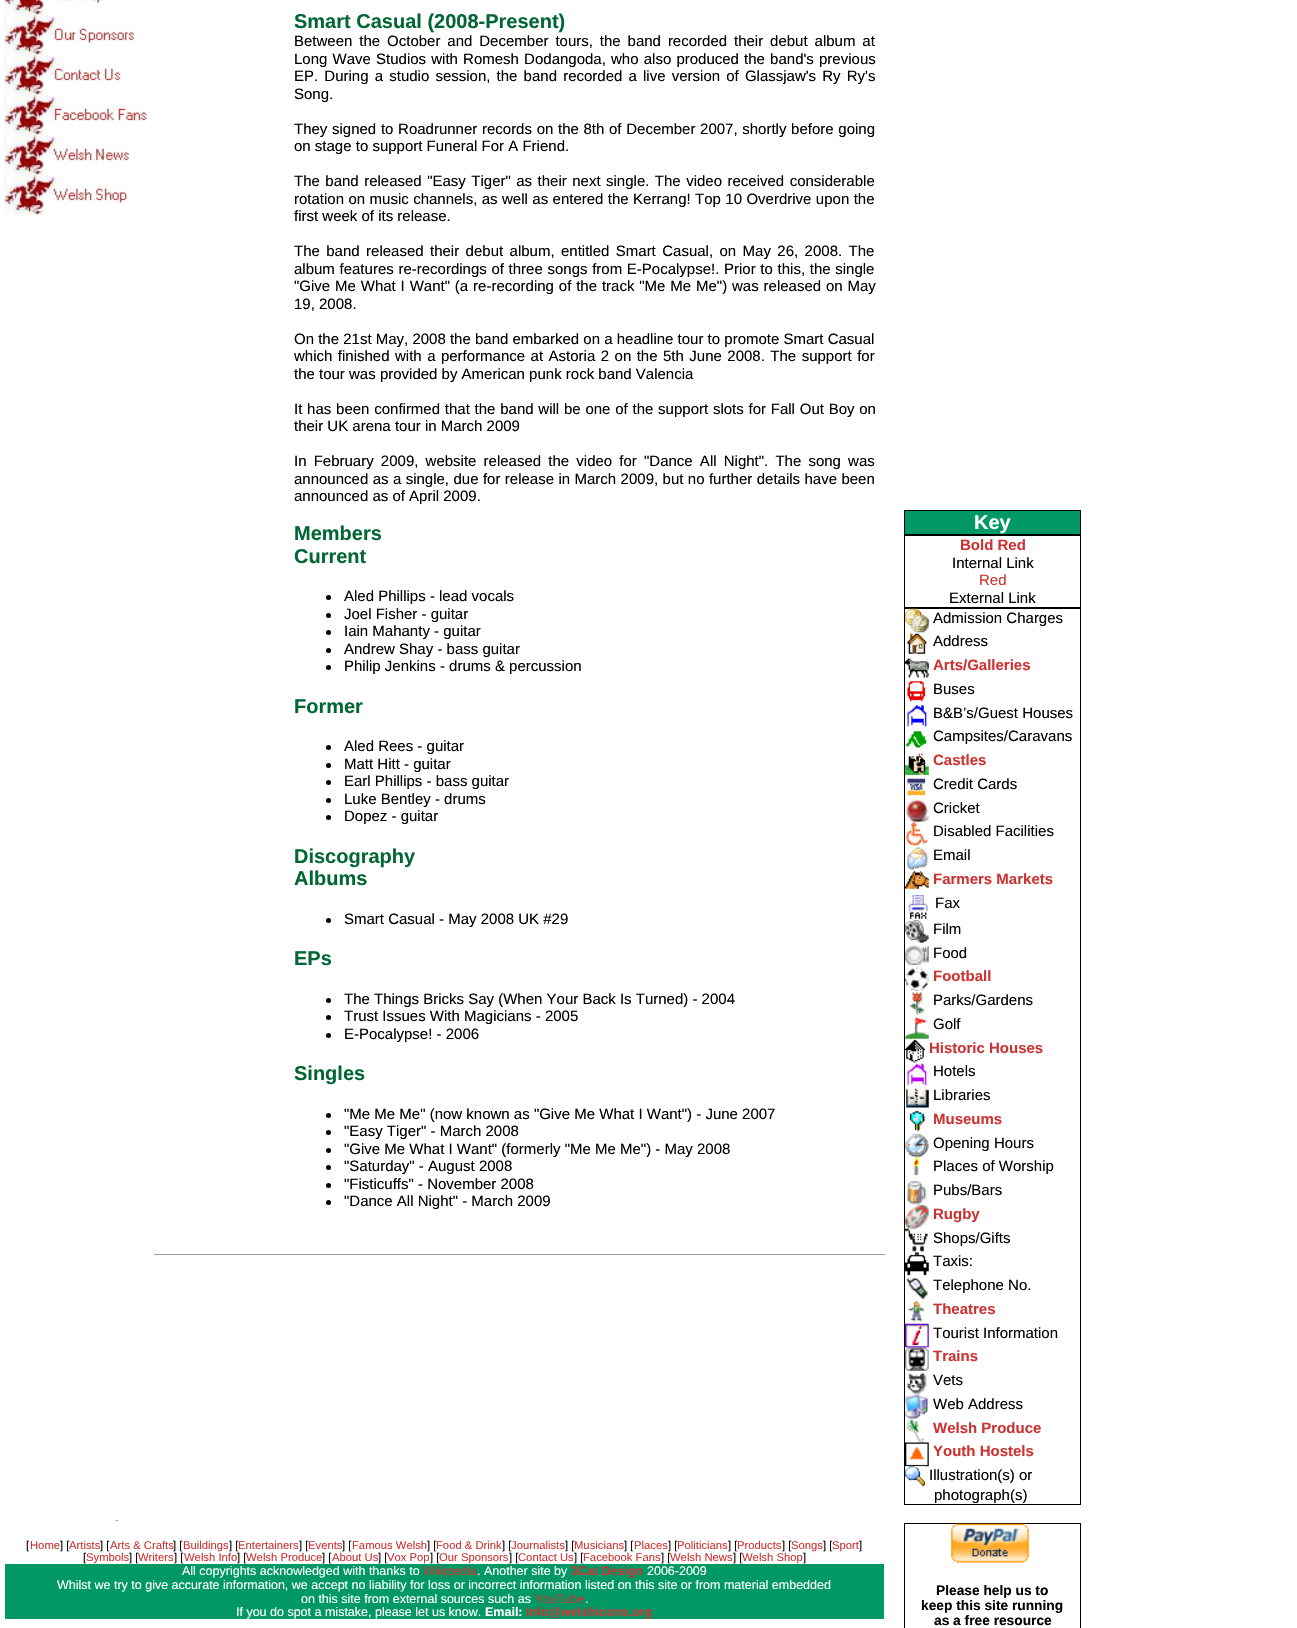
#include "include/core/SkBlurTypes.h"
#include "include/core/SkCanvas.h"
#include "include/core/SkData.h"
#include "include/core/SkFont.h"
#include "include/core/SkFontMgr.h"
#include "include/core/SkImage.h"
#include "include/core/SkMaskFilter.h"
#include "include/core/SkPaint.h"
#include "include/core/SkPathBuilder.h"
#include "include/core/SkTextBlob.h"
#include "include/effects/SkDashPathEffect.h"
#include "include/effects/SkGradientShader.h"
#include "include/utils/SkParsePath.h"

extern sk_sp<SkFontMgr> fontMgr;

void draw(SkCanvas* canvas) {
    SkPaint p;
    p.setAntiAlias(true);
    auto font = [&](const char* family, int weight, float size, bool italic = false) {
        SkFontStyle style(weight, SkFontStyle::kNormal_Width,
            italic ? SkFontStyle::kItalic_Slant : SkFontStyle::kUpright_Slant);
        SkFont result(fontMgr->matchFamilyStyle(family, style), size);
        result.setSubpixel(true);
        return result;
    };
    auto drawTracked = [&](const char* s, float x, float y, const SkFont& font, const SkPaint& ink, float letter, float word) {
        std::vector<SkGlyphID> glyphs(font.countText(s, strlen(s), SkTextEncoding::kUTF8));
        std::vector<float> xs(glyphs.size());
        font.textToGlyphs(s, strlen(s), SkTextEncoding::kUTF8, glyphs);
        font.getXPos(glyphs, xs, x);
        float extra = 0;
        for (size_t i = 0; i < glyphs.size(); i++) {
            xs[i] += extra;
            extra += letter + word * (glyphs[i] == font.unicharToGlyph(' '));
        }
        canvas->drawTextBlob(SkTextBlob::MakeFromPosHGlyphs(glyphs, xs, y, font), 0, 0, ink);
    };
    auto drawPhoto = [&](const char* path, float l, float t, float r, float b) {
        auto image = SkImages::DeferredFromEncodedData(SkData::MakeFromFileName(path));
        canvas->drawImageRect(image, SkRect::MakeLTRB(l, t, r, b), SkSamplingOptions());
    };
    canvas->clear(0xFFFFFFFF);
    drawPhoto("media/1.png", 3, 0, 103, 15);
    drawPhoto("media/2.png", 3, 15, 135, 55);
    drawPhoto("media/3.png", 3, 55, 122, 95);
    drawPhoto("media/4.png", 3, 95, 148, 135);
    drawPhoto("media/5.png", 3, 135, 130, 175);
    drawPhoto("media/6.png", 3, 175, 128, 215);
    p.setColor(0xFF9F9F9F);
    canvas->drawRect(SkRect::MakeLTRB(116, 1520, 119, 1521), p);
    p.setColor(0xFFEEEEEE);
    canvas->drawRect(SkRect::MakeLTRB(118, 1520, 119, 1521), p);
    auto font1 = font("Liberation Sans", 700, 20);
    p.setColor(0xFF006633);
    canvas->drawString("Smart Casual (2008-Present)", 294, 28, font1, p);
    auto font2 = font("Liberation Sans", 400, 15);
    p.setColor(0xFF000000);
    drawTracked("Between the October and December tours, the band recorded their debut album at", 294, 46, font2, p, 0, 2.75f);
    drawTracked("Long Wave Studios with Romesh Dodangoda, who also produced the band's previous", 294, 64, font2, p, 0, 1);
    drawTracked("EP. During a studio session, the band recorded a live version of Glassjaw's Ry Ry's", 294, 81, font2, p, 0, 2);
    canvas->drawString("Song.", 294, 99, font2, p);
    drawTracked("They signed to Roadrunner records on the 8th of December 2007, shortly before going", 294, 134, font2, p, 0, 0.5f);
    canvas->drawString("on stage to support Funeral For A Friend.", 294, 151, font2, p);
    drawTracked("The band released \"Easy Tiger\" as their next single. The video received considerable", 294, 186, font2, p, 0, 1.3f);
    drawTracked("rotation on music channels, as well as entered the Kerrang! Top 10 Overdrive upon the", 294, 204, font2, p, 0, 0.25f);
    canvas->drawString("first week of its release.", 294, 221, font2, p);
    drawTracked("The band released their debut album, entitled Smart Casual, on May 26, 2008. The", 294, 256, font2, p, 0, 2.25f);
    drawTracked("album features re-recordings of three songs from E-Pocalypse!. Prior to this, the single", 294, 274, font2, p, 0, 0.5f);
    drawTracked("\"Give Me What I Want\" (a re-recording of the track \"Me Me Me\") was released on May", 294, 291, font2, p, 0, 0.7f);
    canvas->drawString("19, 2008.", 294, 309, font2, p);
    canvas->drawString("On the 21st May, 2008 the band embarked on a headline tour to promote Smart Casual", 294, 344, font2, p);
    drawTracked("which finished with a performance at Astoria 2 on the 5th June 2008. The support for", 294, 361, font2, p, 0, 1.3f);
    canvas->drawString("the tour was provided by American punk rock band Valencia", 294, 379, font2, p);
    drawTracked("It has been confirmed that the band will be one of the support slots for Fall Out Boy on", 294, 414, font2, p, 0, 0.6f);
    canvas->drawString("their UK arena tour in March 2009", 294, 431, font2, p);
    drawTracked("In February 2009, website released the video for \"Dance All Night\". The song was", 294, 466, font2, p, 0, 3);
    drawTracked("announced as a single, due for release in March 2009, but no further details have been", 294, 484, font2, p, 0, 0.25f);
    canvas->drawString("announced as of April 2009.", 294, 501, font2, p);
    p.setColor(0xFF006633);
    canvas->drawString("Members", 294, 540, font1, p);
    canvas->drawString("Current", 294, 563, font1, p);
    p.setColor(0xFF000000);
    canvas->drawCircle(328.5f, 597.5f, 2.5f, p);
    canvas->drawString("Aled Phillips - lead vocals", 344, 601, font2, p);
    canvas->drawCircle(328.5f, 615.5f, 2.5f, p);
    canvas->drawString("Joel Fisher - guitar", 344, 619, font2, p);
    canvas->drawCircle(328.5f, 632.5f, 2.5f, p);
    canvas->drawString("Iain Mahanty - guitar", 344, 636, font2, p);
    canvas->drawCircle(328.5f, 650.5f, 2.5f, p);
    canvas->drawString("Andrew Shay - bass guitar", 344, 654, font2, p);
    canvas->drawCircle(328.5f, 667.5f, 2.5f, p);
    canvas->drawString("Philip Jenkins - drums & percussion", 344, 671, font2, p);
    p.setColor(0xFF006633);
    canvas->drawString("Former", 294, 713, font1, p);
    p.setColor(0xFF000000);
    canvas->drawCircle(328.5f, 747.5f, 2.5f, p);
    canvas->drawString("Aled Rees - guitar", 344, 751, font2, p);
    canvas->drawCircle(328.5f, 765.5f, 2.5f, p);
    canvas->drawString("Matt Hitt - guitar", 344, 769, font2, p);
    canvas->drawCircle(328.5f, 782.5f, 2.5f, p);
    canvas->drawString("Earl Phillips - bass guitar", 344, 786, font2, p);
    canvas->drawCircle(328.5f, 800.5f, 2.5f, p);
    canvas->drawString("Luke Bentley - drums", 344, 804, font2, p);
    canvas->drawCircle(328.5f, 817.5f, 2.5f, p);
    canvas->drawString("Dopez - guitar", 344, 821, font2, p);
    p.setColor(0xFF006633);
    canvas->drawString("Discography", 294, 863, font1, p);
    canvas->drawString("Albums", 294, 885, font1, p);
    p.setColor(0xFF000000);
    canvas->drawCircle(328.5f, 920.5f, 2.5f, p);
    canvas->drawString("Smart Casual - May 2008 UK #29", 344, 924, font2, p);
    p.setColor(0xFF006633);
    canvas->drawString("EPs", 294, 965, font1, p);
    p.setColor(0xFF000000);
    canvas->drawCircle(328.5f, 1000.5f, 2.5f, p);
    canvas->drawString("The Things Bricks Say (When Your Back Is Turned) - 2004", 344, 1004, font2, p);
    canvas->drawCircle(328.5f, 1017.5f, 2.5f, p);
    canvas->drawString("Trust Issues With Magicians - 2005", 344, 1021, font2, p);
    canvas->drawCircle(328.5f, 1035.5f, 2.5f, p);
    canvas->drawString("E-Pocalypse! - 2006", 344, 1039, font2, p);
    p.setColor(0xFF006633);
    canvas->drawString("Singles", 294, 1080, font1, p);
    p.setColor(0xFF000000);
    canvas->drawCircle(328.5f, 1115.5f, 2.5f, p);
    canvas->drawString("\"Me Me Me\" (now known as \"Give Me What I Want\") - June 2007", 344, 1119, font2, p);
    canvas->drawCircle(328.5f, 1132.5f, 2.5f, p);
    canvas->drawString("\"Easy Tiger\" - March 2008", 344, 1136, font2, p);
    canvas->drawCircle(328.5f, 1150.5f, 2.5f, p);
    canvas->drawString("\"Give Me What I Want\" (formerly \"Me Me Me\") - May 2008", 344, 1154, font2, p);
    canvas->drawCircle(328.5f, 1167.5f, 2.5f, p);
    canvas->drawString("\"Saturday\" - August 2008", 344, 1171, font2, p);
    canvas->drawCircle(328.5f, 1185.5f, 2.5f, p);
    canvas->drawString("\"Fisticuffs\" - November 2008", 344, 1189, font2, p);
    canvas->drawCircle(328.5f, 1202.5f, 2.5f, p);
    canvas->drawString("\"Dance All Night\" - March 2009", 344, 1206, font2, p);
    p.setColor(0xFF9F9F9F);
    canvas->drawRect(SkRect::MakeLTRB(154, 1254, 886, 1255), p);
    p.setColor(0xFFEEEEEE);
    canvas->drawRect(SkRect::MakeLTRB(885, 1254, 886, 1255), p);
    auto font3 = font("Liberation Sans", 400, 11.25f);
    p.setColor(0xFF000000);
    canvas->drawString("[", 26, 1549, font3, p);
    p.setColor(0xFFCC3333);
    canvas->drawString("Home", 30, 1549, font3, p);
    p.setColor(0xFF000000);
    canvas->drawString("] [", 60, 1549, font3, p);
    p.setColor(0xFFCC3333);
    canvas->drawString("Artists", 69, 1549, font3, p);
    p.setColor(0xFF000000);
    canvas->drawString("] [", 100, 1549, font3, p);
    p.setColor(0xFFCC3333);
    canvas->drawString("Arts & Crafts", 110, 1549, font3, p);
    p.setColor(0xFF000000);
    canvas->drawString("] [", 173, 1549, font3, p);
    p.setColor(0xFFCC3333);
    canvas->drawString("Buildings", 183, 1549, font3, p);
    p.setColor(0xFF000000);
    canvas->drawString("] [", 229, 1549, font3, p);
    p.setColor(0xFFCC3333);
    canvas->drawString("Entertainers", 238, 1549, font3, p);
    p.setColor(0xFF000000);
    canvas->drawString("] [", 299, 1549, font3, p);
    p.setColor(0xFFCC3333);
    canvas->drawString("Events", 308, 1549, font3, p);
    p.setColor(0xFF000000);
    canvas->drawString("] [", 342, 1549, font3, p);
    p.setColor(0xFFCC3333);
    canvas->drawString("Famous Welsh", 352, 1549, font3, p);
    p.setColor(0xFF000000);
    canvas->drawString("] [", 427, 1549, font3, p);
    p.setColor(0xFFCC3333);
    canvas->drawString("Food & Drink", 436, 1549, font3, p);
    p.setColor(0xFF000000);
    canvas->drawString("] [", 502, 1549, font3, p);
    p.setColor(0xFFCC3333);
    canvas->drawString("Journalists", 511, 1549, font3, p);
    p.setColor(0xFF000000);
    canvas->drawString("] [", 565, 1549, font3, p);
    p.setColor(0xFFCC3333);
    canvas->drawString("Musicians", 574, 1549, font3, p);
    p.setColor(0xFF000000);
    canvas->drawString("] [", 624, 1549, font3, p);
    p.setColor(0xFFCC3333);
    canvas->drawString("Places", 634, 1549, font3, p);
    p.setColor(0xFF000000);
    canvas->drawString("] [", 668, 1549, font3, p);
    p.setColor(0xFFCC3333);
    canvas->drawString("Politicians", 677, 1549, font3, p);
    p.setColor(0xFF000000);
    canvas->drawString("] [", 728, 1549, font3, p);
    p.setColor(0xFFCC3333);
    canvas->drawString("Products", 737, 1549, font3, p);
    p.setColor(0xFF000000);
    canvas->drawString("] [", 782, 1549, font3, p);
    p.setColor(0xFFCC3333);
    canvas->drawString("Songs", 791, 1549, font3, p);
    p.setColor(0xFF000000);
    canvas->drawString("] [", 823, 1549, font3, p);
    p.setColor(0xFFCC3333);
    canvas->drawString("Sport", 832, 1549, font3, p);
    p.setColor(0xFF000000);
    canvas->drawString("]", 859, 1549, font3, p);
    canvas->drawString("[", 83, 1561, font3, p);
    p.setColor(0xFFCC3333);
    canvas->drawString("Symbols", 86, 1561, font3, p);
    p.setColor(0xFF000000);
    canvas->drawString("] [", 129, 1561, font3, p);
    p.setColor(0xFFCC3333);
    canvas->drawString("Writers", 138, 1561, font3, p);
    p.setColor(0xFF000000);
    canvas->drawString("] [", 174, 1561, font3, p);
    p.setColor(0xFFCC3333);
    canvas->drawString("Welsh Info", 184, 1561, font3, p);
    p.setColor(0xFF000000);
    canvas->drawString("] [", 237, 1561, font3, p);
    p.setColor(0xFFCC3333);
    canvas->drawString("Welsh Produce", 246, 1561, font3, p);
    p.setColor(0xFF000000);
    canvas->drawString("] [", 322, 1561, font3, p);
    p.setColor(0xFFCC3333);
    canvas->drawString("About Us", 332, 1561, font3, p);
    p.setColor(0xFF000000);
    canvas->drawString("] [", 378, 1561, font3, p);
    p.setColor(0xFFCC3333);
    canvas->drawString("Vox Pop", 387, 1561, font3, p);
    p.setColor(0xFF000000);
    canvas->drawString("] [", 430, 1561, font3, p);
    p.setColor(0xFFCC3333);
    canvas->drawString("Our Sponsors", 439, 1561, font3, p);
    p.setColor(0xFF000000);
    canvas->drawString("] [", 509, 1561, font3, p);
    p.setColor(0xFFCC3333);
    canvas->drawString("Contact Us", 518, 1561, font3, p);
    p.setColor(0xFF000000);
    canvas->drawString("] [", 574, 1561, font3, p);
    p.setColor(0xFFCC3333);
    canvas->drawString("Facebook Fans", 583, 1561, font3, p);
    p.setColor(0xFF000000);
    canvas->drawString("] [", 661, 1561, font3, p);
    p.setColor(0xFFCC3333);
    canvas->drawString("Welsh News", 670, 1561, font3, p);
    p.setColor(0xFF000000);
    canvas->drawString("] [", 733, 1561, font3, p);
    p.setColor(0xFFCC3333);
    canvas->drawString("Welsh Shop", 742, 1561, font3, p);
    p.setColor(0xFF000000);
    canvas->drawString("]", 803, 1561, font3, p);
    p.setColor(0xFF009966);
    canvas->drawRect(SkRect::MakeLTRB(5, 1564, 884, 1619), p);
    auto font4 = font("Liberation Sans", 400, 12.5f);
    p.setColor(0xFFFFFFFF);
    canvas->drawString("All copyrights acknowledged with thanks to", 182, 1575, font4, p);
    p.setColor(0xFFCC3333);
    canvas->drawString("Wikipedia", 423, 1575, font4, p);
    p.setColor(0xFFFFFFFF);
    canvas->drawString(". Another site by", 477, 1575, font4, p);
    auto font5 = font("Liberation Sans", 700, 12.5f);
    p.setColor(0xFFCC3333);
    canvas->drawString("3Cat Design", 571, 1575, font5, p);
    p.setColor(0xFFFFFFFF);
    {
        const struct { const char* s; float x, y; } items[] = {
            {"2006-2009", 647, 1575},
            {"Whilst we try to give accurate information, we accept no liability for loss or incorrect information listed on this site or from material embedded", 57, 1589},
            {"on this site from external sources such as", 301, 1603},
        };
        for (auto [s, x, y] : items) {
            canvas->drawString(s, x, y, font4, p);
        }
    }
    p.setColor(0xFFCC3333);
    canvas->drawString("YouTube", 534, 1603, font4, p);
    p.setColor(0xFFFFFFFF);
    canvas->drawString(".", 585, 1603, font4, p);
    canvas->drawString("If you do spot a mistake, please let us know.", 236, 1616, font4, p);
    canvas->drawString("Email:", 485, 1616, font5, p);
    p.setColor(0xFFCC3333);
    canvas->drawString("Info@welshicons.org", 526, 1616, font5, p);
    p.setColor(0xFF009966);
    canvas->drawRect(SkRect::MakeLTRB(904.5f, 510.5f, 1080.5f, 534.5f), p);
    p.setStyle(SkPaint::kStroke_Style);
    p.setStrokeWidth(1);
    p.setColor(0xFF000000);
    canvas->drawRect(SkRect::MakeLTRB(904.5f, 510.5f, 1080.5f, 534.5f), p);
    p.setStyle(SkPaint::kFill_Style);
    p.setColor(0xFFFFFFFF);
    canvas->drawString("Key", 974, 529, font1, p);
    p.setStyle(SkPaint::kStroke_Style);
    p.setColor(0xFF000000);
    canvas->drawRect(SkRect::MakeLTRB(904.5f, 535.5f, 1080.5f, 607.5f), p);
    auto font6 = font("Liberation Sans", 700, 15);
    p.setStyle(SkPaint::kFill_Style);
    p.setColor(0xFFCC3333);
    canvas->drawString("Bold Red", 960, 550, font6, p);
    p.setColor(0xFF000000);
    canvas->drawString("Internal Link", 952, 568, font2, p);
    p.setColor(0xFFCC3333);
    canvas->drawString("Red", 979, 585, font2, p);
    p.setColor(0xFF000000);
    canvas->drawString("External Link", 949, 603, font2, p);
    p.setStyle(SkPaint::kStroke_Style);
    canvas->drawRect(SkRect::MakeLTRB(904.5f, 608.5f, 1080.5f, 1504.5f), p);
    drawPhoto("media/7.png", 905, 608, 929, 633);
    p.setStyle(SkPaint::kFill_Style);
    canvas->drawString("Admission Charges", 933, 623, font2, p);
    drawPhoto("media/8.png", 907, 632, 927, 654);
    canvas->drawString("Address", 933, 646, font2, p);
    drawPhoto("media/9.png", 905, 658, 929, 678);
    p.setColor(0xFFCC3333);
    canvas->drawString("Arts/Galleries", 933, 670, font6, p);
    drawPhoto("media/10.png", 907, 681, 926, 702);
    p.setColor(0xFF000000);
    canvas->drawString("Buses", 933, 694, font2, p);
    drawPhoto("media/11.png", 907, 704, 927, 727);
    canvas->drawString("B&B’s/Guest Houses", 933, 718, font2, p);
    drawPhoto("media/12.png", 906, 731, 927, 748);
    canvas->drawString("Campsites/Caravans", 933, 741, font2, p);
    drawPhoto("media/13.png", 905, 753, 929, 775);
    p.setColor(0xFFCC3333);
    canvas->drawString("Castles", 933, 765, font6, p);
    drawPhoto("media/14.png", 907, 778, 926, 796);
    p.setColor(0xFF000000);
    canvas->drawString("Credit Cards", 933, 789, font2, p);
    drawPhoto("media/15.png", 905, 798, 929, 823);
    canvas->drawString("Cricket", 933, 813, font2, p);
    drawPhoto("media/16.png", 906, 822, 928, 847);
    canvas->drawString("Disabled Facilities", 933, 836, font2, p);
    drawPhoto("media/17.png", 907, 846, 929, 870);
    canvas->drawString("Email", 933, 860, font2, p);
    drawPhoto("media/18.png", 905, 871, 929, 889);
    p.setColor(0xFFCC3333);
    canvas->drawString("Farmers Markets", 933, 884, font6, p);
    drawPhoto("media/19.png", 908, 894, 928, 919);
    p.setColor(0xFF000000);
    canvas->drawString("Fax", 935, 908, font2, p);
    drawPhoto("media/20.png", 905, 920, 929, 943);
    canvas->drawString("Film", 933, 934, font2, p);
    drawPhoto("media/21.png", 905, 945, 929, 966);
    canvas->drawString("Food", 933, 958, font2, p);
    drawPhoto("media/22.png", 905, 967, 929, 992);
    p.setColor(0xFFCC3333);
    canvas->drawString("Football", 933, 981, font6, p);
    drawPhoto("media/23.png", 909, 991, 926, 1015);
    p.setColor(0xFF000000);
    canvas->drawString("Parks/Gardens", 933, 1005, font2, p);
    drawPhoto("media/24.png", 905, 1017, 929, 1039);
    canvas->drawString("Golf", 933, 1029, font2, p);
    drawPhoto("media/25.png", 905, 1039, 925, 1063);
    p.setColor(0xFFCC3333);
    canvas->drawString("Historic Houses", 929, 1053, font6, p);
    drawPhoto("media/26.png", 907, 1063, 927, 1086);
    p.setColor(0xFF000000);
    canvas->drawString("Hotels", 933, 1076, font2, p);
    drawPhoto("media/27.png", 906, 1088, 929, 1108);
    canvas->drawString("Libraries", 933, 1100, font2, p);
    drawPhoto("media/28.png", 909, 1111, 926, 1132);
    p.setColor(0xFFCC3333);
    canvas->drawString("Museums", 933, 1124, font6, p);
    drawPhoto("media/29.png", 905, 1133, 929, 1158);
    p.setColor(0xFF000000);
    canvas->drawString("Opening Hours", 933, 1148, font2, p);
    drawPhoto("media/30.png", 913, 1157, 923, 1176);
    canvas->drawString("Places of Worship", 933, 1171, font2, p);
    drawPhoto("media/31.png", 907, 1181, 928, 1205);
    canvas->drawString("Pubs/Bars", 933, 1195, font2, p);
    drawPhoto("media/32.png", 905, 1205, 929, 1229);
    p.setColor(0xFFCC3333);
    canvas->drawString("Rugby", 933, 1219, font6, p);
    drawPhoto("media/33.png", 905, 1228, 928, 1252);
    p.setColor(0xFF000000);
    canvas->drawString("Shops/Gifts", 933, 1243, font2, p);
    drawPhoto("media/34.png", 905, 1252, 929, 1276);
    canvas->drawString("Taxis:", 933, 1266, font2, p);
    drawPhoto("media/35.png", 906, 1277, 929, 1299);
    canvas->drawString("Telephone No.", 933, 1290, font2, p);
    drawPhoto("media/36.png", 908, 1301, 924, 1322);
    p.setColor(0xFFCC3333);
    canvas->drawString("Theatres", 933, 1314, font6, p);
    drawPhoto("media/37.png", 905, 1323, 929, 1348);
    p.setColor(0xFF000000);
    canvas->drawString("Tourist Information", 933, 1338, font2, p);
    drawPhoto("media/38.png", 905, 1347, 929, 1372);
    p.setColor(0xFFCC3333);
    canvas->drawString("Trains", 933, 1361, font6, p);
    drawPhoto("media/39.png", 907, 1371, 927, 1395);
    p.setColor(0xFF000000);
    canvas->drawString("Vets", 933, 1385, font2, p);
    drawPhoto("media/40.png", 905, 1395, 928, 1419);
    canvas->drawString("Web Address", 933, 1409, font2, p);
    drawPhoto("media/41.png", 906, 1418, 925, 1443);
    p.setColor(0xFFCC3333);
    canvas->drawString("Welsh Produce", 933, 1433, font6, p);
    drawPhoto("media/42.png", 905, 1442, 929, 1467);
    canvas->drawString("Youth Hostels", 933, 1456, font6, p);
    drawPhoto("media/43.png", 905, 1466, 925, 1487);
    p.setColor(0xFF000000);
    canvas->drawString("Illustration(s) or", 929, 1480, font2, p);
    canvas->drawString("photograph(s)", 934, 1500, font2, p);
    p.setStyle(SkPaint::kStroke_Style);
    canvas->drawRect(SkRect::MakeLTRB(904.5f, 1523.5f, 1080.5f, 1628.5f), p);
    drawPhoto("media/44.png", 951, 1523, 1029, 1563);
    auto font7 = font("Liberation Sans", 700, 13.75f);
    p.setStyle(SkPaint::kFill_Style);
    {
        const struct { const char* s; float x, y; } items[] = {
            {"Please help us to", 936, 1595},
            {"keep this site running", 921, 1610},
            {"as a free resource", 934, 1625},
        };
        for (auto [s, x, y] : items) {
            canvas->drawString(s, x, y, font7, p);
        }
    }
}
